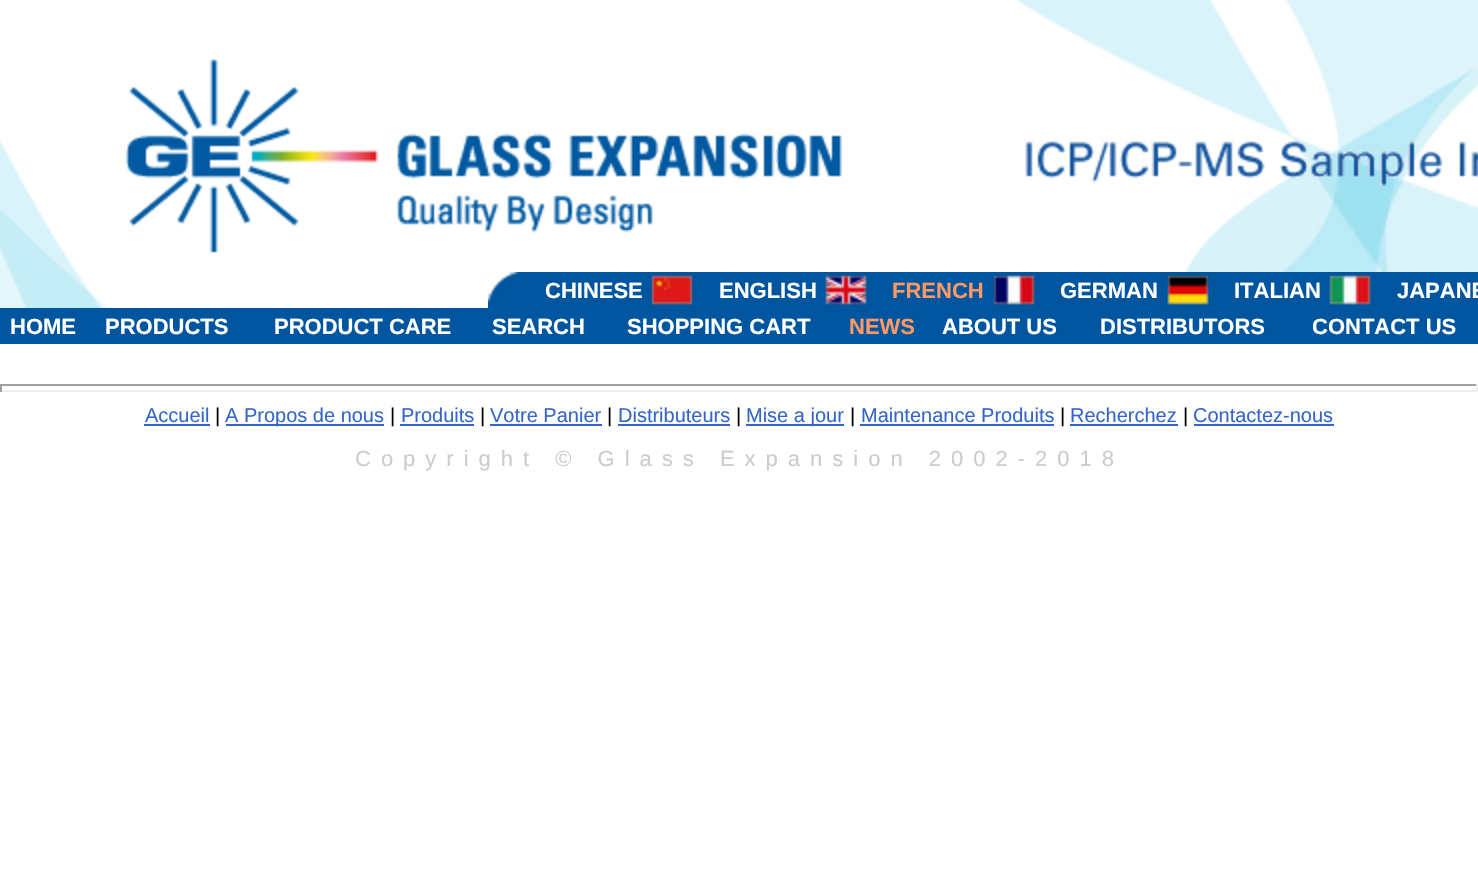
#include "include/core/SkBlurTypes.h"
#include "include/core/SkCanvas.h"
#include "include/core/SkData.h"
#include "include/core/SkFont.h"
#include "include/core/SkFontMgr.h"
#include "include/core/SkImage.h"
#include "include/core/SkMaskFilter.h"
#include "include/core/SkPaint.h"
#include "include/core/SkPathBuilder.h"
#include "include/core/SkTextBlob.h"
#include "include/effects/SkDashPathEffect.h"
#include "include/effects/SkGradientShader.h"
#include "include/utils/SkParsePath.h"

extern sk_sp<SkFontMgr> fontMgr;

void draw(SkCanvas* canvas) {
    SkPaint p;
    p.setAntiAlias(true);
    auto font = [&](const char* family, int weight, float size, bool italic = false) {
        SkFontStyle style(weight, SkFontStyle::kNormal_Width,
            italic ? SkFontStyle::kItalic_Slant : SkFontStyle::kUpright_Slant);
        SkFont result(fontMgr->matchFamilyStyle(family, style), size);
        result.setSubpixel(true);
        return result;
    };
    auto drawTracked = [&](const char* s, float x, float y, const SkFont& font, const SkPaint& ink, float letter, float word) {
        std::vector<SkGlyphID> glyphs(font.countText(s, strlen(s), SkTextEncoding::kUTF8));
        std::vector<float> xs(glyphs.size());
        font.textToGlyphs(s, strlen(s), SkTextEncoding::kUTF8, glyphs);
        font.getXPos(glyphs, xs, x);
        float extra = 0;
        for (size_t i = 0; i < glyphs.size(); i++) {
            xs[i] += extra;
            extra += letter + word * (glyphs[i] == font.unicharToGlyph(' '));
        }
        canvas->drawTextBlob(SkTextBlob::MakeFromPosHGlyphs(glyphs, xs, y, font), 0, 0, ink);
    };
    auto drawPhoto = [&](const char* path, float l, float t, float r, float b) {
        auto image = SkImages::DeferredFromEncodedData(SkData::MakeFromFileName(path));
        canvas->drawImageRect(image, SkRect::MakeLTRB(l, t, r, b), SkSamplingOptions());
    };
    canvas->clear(0xFFFFFFFF);
    drawPhoto("media/1.png", 1016, 0, 1478, 36);
    drawPhoto("media/2.png", 1078, 36, 1478, 272);
    drawPhoto("media/3.png", 0, 59, 1478, 272);
    drawPhoto("media/4.png", 0, 272, 107, 308);
    p.setColor(0xFF00559F);
    canvas->drawRect(SkRect::MakeLTRB(488, 272, 1478, 308), p);
    drawPhoto("media/5.png", 488, 272, 519, 303);
    auto font1 = font("Liberation Sans", 700, 22);
    p.setColor(0xFFFFFFFF);
    canvas->drawString("CHINESE", 545, 298, font1, p);
    drawPhoto("media/6.png", 651, 275, 693, 305);
    canvas->drawString("ENGLISH", 719, 298, font1, p);
    drawPhoto("media/7.png", 825, 275, 867, 305);
    p.setColor(0xFFFF9966);
    canvas->drawString("FRENCH", 892, 298, font1, p);
    drawPhoto("media/8.png", 993, 275, 1035, 305);
    p.setColor(0xFFFFFFFF);
    canvas->drawString("GERMAN", 1060, 298, font1, p);
    drawPhoto("media/9.png", 1167, 275, 1209, 305);
    canvas->drawString("ITALIAN", 1234, 298, font1, p);
    drawPhoto("media/10.png", 1329, 275, 1371, 305);
    canvas->drawString("JAPANE", 1397, 298, font1, p);
    p.setColor(0xFF00559F);
    canvas->drawRect(SkRect::MakeLTRB(0, 308, 1478, 344), p);
    p.setColor(0xFFFFFFFF);
    {
        const struct { const char* s; float x, y; } items[] = {
            {"HOME", 10, 334},
            {"PRODUCTS", 105, 334},
            {"PRODUCT CARE", 274, 334},
            {"SEARCH", 492, 334},
            {"SHOPPING CART", 627, 334},
        };
        for (auto [s, x, y] : items) {
            canvas->drawString(s, x, y, font1, p);
        }
    }
    p.setColor(0xFFFF9966);
    canvas->drawString("NEWS", 849, 334, font1, p);
    p.setColor(0xFFFFFFFF);
    {
        const struct { const char* s; float x, y; } items[] = {
            {"ABOUT US", 942, 334},
            {"DISTRIBUTORS", 1100, 334},
            {"CONTACT US", 1312, 334},
        };
        for (auto [s, x, y] : items) {
            canvas->drawString(s, x, y, font1, p);
        }
    }
    {
        const struct { float l, t, r, b; SkColor color; } items[] = {
            {0, 384, 1478, 386, 0xFF9F9F9F},
            {1476, 384, 1478, 392, 0xFFEEEEEE},
            {0, 390, 1478, 392, 0xFFEEEEEE},
            {0, 384, 2, 392, 0xFF9F9F9F},
        };
        for (auto [l, t, r, b, color] : items) {
            p.setColor(color);
            canvas->drawRect(SkRect::MakeLTRB(l, t, r, b), p);
        }
    }
    auto font2 = font("Liberation Sans", 400, 20);
    p.setColor(0xFF3366CC);
    canvas->drawString("Accueil", 145, 422, font2, p);
    canvas->drawRect(SkRect::MakeLTRB(144, 424, 210, 426), p);
    p.setColor(0xFF000000);
    canvas->drawString("|", 215, 422, font2, p);
    p.setColor(0xFF3366CC);
    canvas->drawRect(SkRect::MakeLTRB(226, 424, 384, 426), p);
    canvas->drawString("A Propos de nous", 225, 422, font2, p);
    p.setColor(0xFF000000);
    canvas->drawString("|", 390, 422, font2, p);
    p.setColor(0xFF3366CC);
    canvas->drawString("Produits", 401, 422, font2, p);
    canvas->drawRect(SkRect::MakeLTRB(400, 424, 474, 426), p);
    p.setColor(0xFF000000);
    canvas->drawString("|", 480, 422, font2, p);
    p.setColor(0xFF3366CC);
    canvas->drawString("Votre Panier", 490, 422, font2, p);
    canvas->drawRect(SkRect::MakeLTRB(490, 424, 602, 426), p);
    p.setColor(0xFF000000);
    canvas->drawString("|", 607, 422, font2, p);
    p.setColor(0xFF3366CC);
    canvas->drawString("Distributeurs", 618, 422, font2, p);
    canvas->drawRect(SkRect::MakeLTRB(618, 424, 730, 426), p);
    p.setColor(0xFF000000);
    canvas->drawString("|", 736, 422, font2, p);
    p.setColor(0xFF3366CC);
    canvas->drawRect(SkRect::MakeLTRB(746, 424, 844, 426), p);
    canvas->drawString("Mise a jour", 746, 422, font2, p);
    p.setColor(0xFF000000);
    canvas->drawString("|", 850, 422, font2, p);
    p.setColor(0xFF3366CC);
    canvas->drawString("Maintenance Produits", 861, 422, font2, p);
    canvas->drawRect(SkRect::MakeLTRB(860, 424, 1054, 426), p);
    p.setColor(0xFF000000);
    canvas->drawString("|", 1060, 422, font2, p);
    p.setColor(0xFF3366CC);
    canvas->drawString("Recherchez", 1070, 422, font2, p);
    canvas->drawRect(SkRect::MakeLTRB(1070, 424, 1178, 426), p);
    p.setColor(0xFF000000);
    canvas->drawString("|", 1183, 422, font2, p);
    p.setColor(0xFF3366CC);
    canvas->drawString("Contactez-nous", 1193, 422, font2, p);
    canvas->drawRect(SkRect::MakeLTRB(1194, 424, 1334, 426), p);
    auto font3 = font("Liberation Sans", 400, 22);
    p.setColor(0xFFCCCCCC);
    drawTracked("Copyright © Glass Expansion 2002-2018", 355, 466, font3, p, 10, 0);
}
